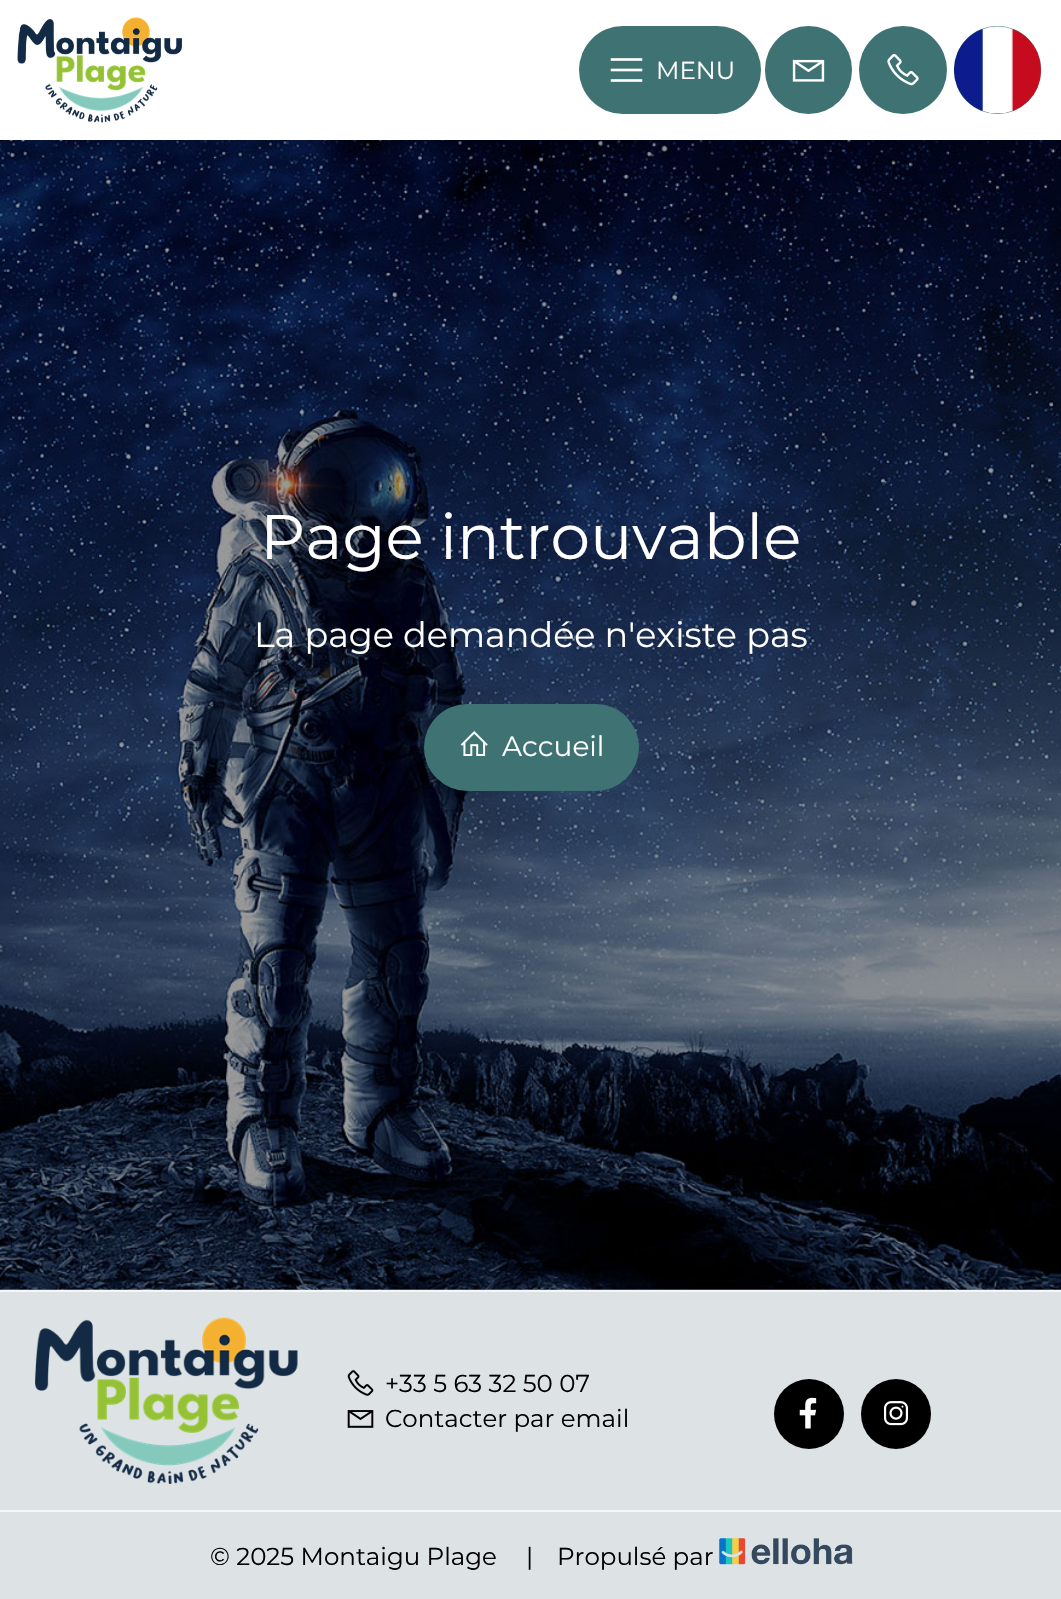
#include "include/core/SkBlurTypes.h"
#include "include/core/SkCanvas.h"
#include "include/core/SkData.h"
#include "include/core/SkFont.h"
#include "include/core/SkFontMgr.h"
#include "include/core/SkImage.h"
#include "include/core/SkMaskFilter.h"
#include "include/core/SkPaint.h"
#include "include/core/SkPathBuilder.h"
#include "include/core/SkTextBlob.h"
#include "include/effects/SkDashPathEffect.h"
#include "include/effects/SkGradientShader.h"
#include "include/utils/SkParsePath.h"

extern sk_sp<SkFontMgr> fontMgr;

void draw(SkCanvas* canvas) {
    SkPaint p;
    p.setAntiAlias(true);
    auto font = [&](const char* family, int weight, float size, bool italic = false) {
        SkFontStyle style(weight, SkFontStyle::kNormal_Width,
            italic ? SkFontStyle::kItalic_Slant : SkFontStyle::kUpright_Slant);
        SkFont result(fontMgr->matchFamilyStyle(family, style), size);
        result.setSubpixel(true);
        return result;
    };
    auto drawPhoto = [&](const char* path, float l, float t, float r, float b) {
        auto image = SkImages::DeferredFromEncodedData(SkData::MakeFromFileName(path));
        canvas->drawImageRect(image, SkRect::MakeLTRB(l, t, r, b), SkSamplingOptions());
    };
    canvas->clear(0xFFFFFFFF);
    drawPhoto("media/6.png", 0, 140, 1061, 1290);
    p.setColor(0x1A000000);
    p.setMaskFilter(SkMaskFilter::MakeBlur(kNormal_SkBlurStyle, 13));
    canvas->drawRect(SkRect::MakeLTRB(7, 0, 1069, 140), p);
    p.setMaskFilter(nullptr);
    p.setColor(0xFFFFFFFF);
    canvas->drawRect(SkRect::MakeLTRB(0, 0, 1061, 140), p);
    drawPhoto("media/1.png", 17, 17, 182, 123);
    p.setColor(0xFF3F7373);
    canvas->drawRoundRect(SkRect::MakeLTRB(579, 26, 761, 114), 44, 44, p);
    drawPhoto("media/2.png", 610, 58, 643, 82);
    auto font1 = font("Montserrat", 100, 24.5f);
    p.setColor(0xFFFFFFFF);
    canvas->drawString("MENU", 656, 79, font1, p);
    p.setColor(0xFF3F7373);
    canvas->drawRoundRect(SkRect::MakeLTRB(765, 26, 852, 114), 43.5f, 43.5f, p);
    drawPhoto("media/3.png", 792, 59, 825, 82);
    canvas->drawCircle(903, 70, 44, p);
    drawPhoto("media/4.png", 887, 53, 919, 86);
    canvas->drawRoundRect(SkRect::MakeLTRB(954, 26, 1041, 114), 43.5f, 43.5f, p);
    drawPhoto("media/5.png", 953, 26, 1042, 114);
    auto font2 = font("Montserrat", 100, 63);
    p.setColor(0xFFFFFFFF);
    canvas->drawString("Page introuvable", 260, 559, font2, p);
    auto font3 = font("Montserrat", 100, 35);
    canvas->drawString("La page demandée n'existe pas", 254, 647, font3, p);
    p.setColor(0xFF3F7373);
    canvas->drawRoundRect(SkRect::MakeLTRB(424, 704, 639, 791), 43.5f, 43.5f, p);
    drawPhoto("media/7.png", 460, 731, 488, 756);
    auto font4 = font("Montserrat", 100, 28);
    p.setColor(0xFFFFFFFF);
    canvas->drawString("Accueil", 502, 756, font4, p);
    {
        const struct { float l, t, r, b; SkColor color; } items[] = {
            {0, 1292, 1061, 1510, 0xFFDDE2E5},
            {0, 1290, 1061, 1292, 0xFFF5F6F7},
            {0, 1510, 1061, 1512, 0xFFF5F6F7},
        };
        for (auto [l, t, r, b, color] : items) {
            p.setColor(color);
            canvas->drawRect(SkRect::MakeLTRB(l, t, r, b), p);
        }
    }
    drawPhoto("media/8.png", 35, 1317, 298, 1484);
    drawPhoto("media/9.png", 347, 1370, 374, 1396);
    p.setColor(0xFF000000);
    canvas->drawString("+33 5 63 32 50 07", 385, 1392, font1, p);
    drawPhoto("media/10.png", 347, 1410, 374, 1428);
    canvas->drawString("Contacter par email", 385, 1427, font1, p);
    canvas->drawCircle(809, 1414, 35, p);
    drawPhoto("media/11.png", 799, 1397, 817, 1429);
    canvas->drawCircle(896, 1414, 35, p);
    drawPhoto("media/12.png", 883, 1401, 909, 1426);
    p.setColor(0xFFDDE2E5);
    canvas->drawRect(SkRect::MakeLTRB(0, 1512, 1061, 1599), p);
    p.setColor(0xFF000000);
    {
        const struct { const char* s; float x, y; } items[] = {
            {"© 2025 Montaigu Plage", 210, 1565},
            {"|", 526, 1565},
            {"Propulsé par", 557, 1565},
        };
        for (auto [s, x, y] : items) {
            canvas->drawString(s, x, y, font1, p);
        }
    }
    drawPhoto("media/13.png", 719, 1538, 853, 1565);
}
